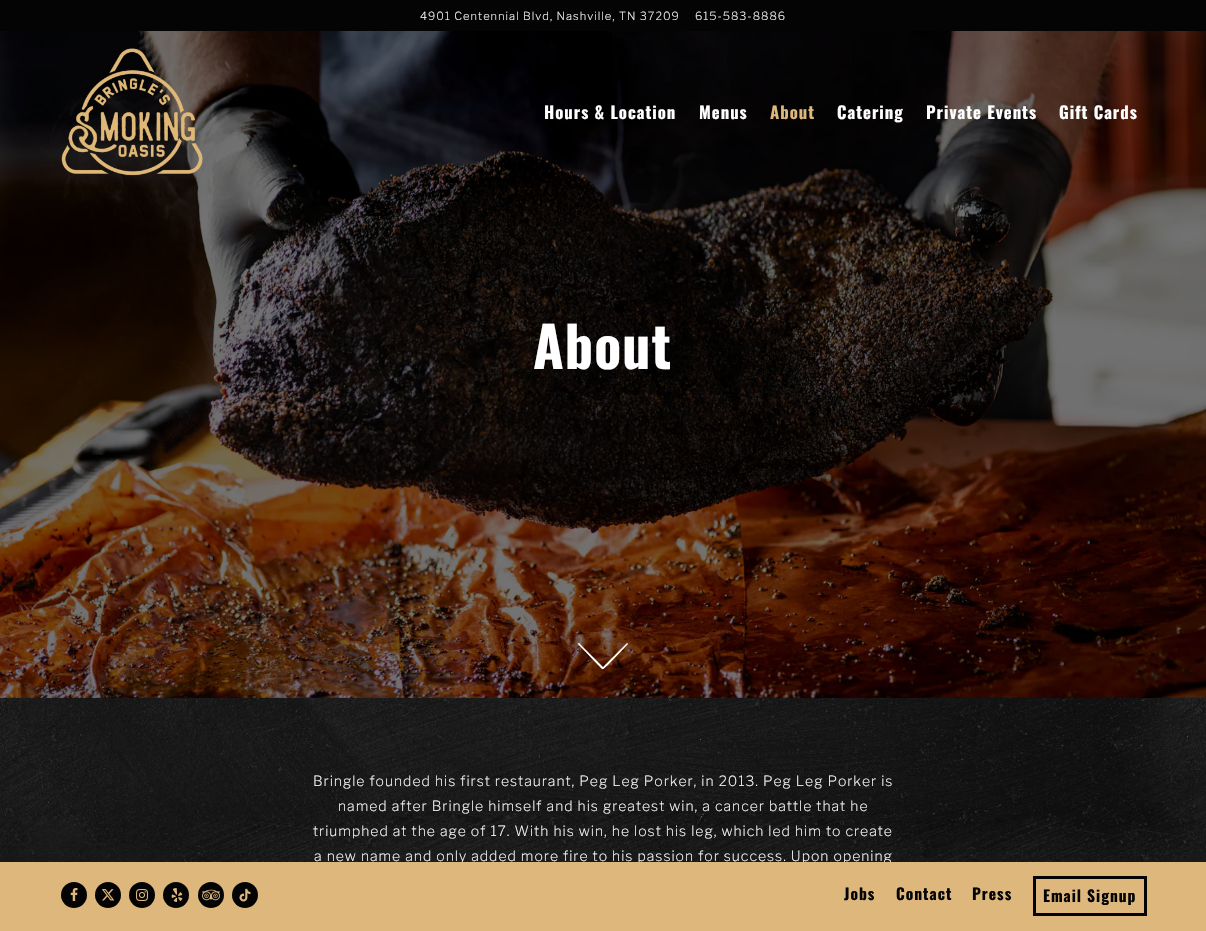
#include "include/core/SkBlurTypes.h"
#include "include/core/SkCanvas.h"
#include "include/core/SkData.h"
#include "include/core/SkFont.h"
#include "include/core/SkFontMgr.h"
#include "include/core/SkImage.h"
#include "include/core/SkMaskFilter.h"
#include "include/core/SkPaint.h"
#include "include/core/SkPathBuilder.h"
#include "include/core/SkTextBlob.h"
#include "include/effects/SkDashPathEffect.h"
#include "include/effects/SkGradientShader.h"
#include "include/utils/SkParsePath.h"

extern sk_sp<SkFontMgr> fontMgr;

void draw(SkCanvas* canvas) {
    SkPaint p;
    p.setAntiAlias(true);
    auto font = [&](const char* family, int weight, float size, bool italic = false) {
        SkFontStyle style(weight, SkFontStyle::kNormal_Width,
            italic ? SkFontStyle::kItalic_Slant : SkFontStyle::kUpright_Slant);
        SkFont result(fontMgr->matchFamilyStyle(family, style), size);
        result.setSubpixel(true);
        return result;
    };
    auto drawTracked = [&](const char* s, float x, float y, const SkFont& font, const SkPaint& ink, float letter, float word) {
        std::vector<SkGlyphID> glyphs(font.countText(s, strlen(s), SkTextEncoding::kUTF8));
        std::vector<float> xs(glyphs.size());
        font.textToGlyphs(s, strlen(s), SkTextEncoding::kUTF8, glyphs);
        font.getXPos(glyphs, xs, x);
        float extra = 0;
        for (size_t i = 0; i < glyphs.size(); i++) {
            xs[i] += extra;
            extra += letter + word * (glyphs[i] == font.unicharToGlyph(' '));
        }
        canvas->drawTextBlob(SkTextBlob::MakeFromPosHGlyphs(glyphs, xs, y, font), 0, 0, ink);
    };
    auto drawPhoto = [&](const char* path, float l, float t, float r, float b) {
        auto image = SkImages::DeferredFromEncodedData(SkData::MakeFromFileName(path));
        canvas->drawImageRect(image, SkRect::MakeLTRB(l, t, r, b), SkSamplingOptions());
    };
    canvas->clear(0xFF040404);
    drawPhoto("media/1.png", 0, 697, 1206, 862);
    auto font1 = font("Libre Franklin", 200, 11.2f);
    p.setColor(0xFFFFFFFF);
    drawTracked("4901 Centennial Blvd, Nashville, TN 37209", 420, 20, font1, p, 1, 0);
    drawTracked("615-583-8886", 695, 20, font1, p, 1, 0);
    drawPhoto("media/3.png", 0, 31, 1206, 698);
    p.setColor(0x8C000000);
    canvas->drawRect(SkRect::MakeLTRB(0, 31, 1206, 698), p);
    drawPhoto("media/2.png", 61, 48, 203, 176);
    auto font2 = font("Oswald", 700, 16.75f);
    p.setColor(0xFFFFFFFF);
    drawTracked("Hours & Location", 544, 119, font2, p, 1, 0);
    drawTracked("Menus", 699, 119, font2, p, 1, 0);
    p.setColor(0xFFDEB77D);
    drawTracked("About", 770, 119, font2, p, 1, 0);
    p.setColor(0xFFFFFFFF);
    {
        const struct { const char* s; float x, y; } items[] = {
            {"Catering", 837, 119},
            {"Private Events", 926, 119},
            {"Gift Cards", 1059, 119},
        };
        for (auto [s, x, y] : items) {
            drawTracked(s, x, y, font2, p, 1, 0);
        }
    }
    auto font3 = font("Oswald", 700, 56);
    drawTracked("About", 533, 369, font3, p, 1, 0);
    canvas->drawPath(SkPathBuilder().moveTo(628, 644).lineTo(608, 665).cubicTo(602, 670, 604, 671, 598, 665).lineTo(578, 644).cubicTo(577, 644, 578, 643, 579, 643).lineTo(603, 667).lineTo(627, 643).cubicTo(627, 643, 628, 643, 628, 644).close().detach(), p);
    auto font4 = font("Libre Franklin", 200, 14);
    {
        const struct { const char* s; float x, y; } items[] = {
            {"Bringle founded his first restaurant, Peg Leg Porker, in 2013. Peg Leg Porker is", 313, 786},
            {"named after Bringle himself and his greatest win, a cancer battle that he", 338, 811},
            {"triumphed at the age of 17. With his win, he lost his leg, which led him to create", 313, 836},
            {"a new name and only added more fire to his passion for success. Upon opening", 314, 861},
        };
        for (auto [s, x, y] : items) {
            drawTracked(s, x, y, font4, p, 1, 0);
        }
    }
    p.setColor(0xFFDEB77D);
    canvas->drawRect(SkRect::MakeLTRB(0, 862, 1206, 931), p);
    p.setColor(0xFF040404);
    canvas->drawCircle(74, 895, 13, p);
    drawPhoto("media/4.png", 70, 888, 78, 901);
    canvas->drawCircle(108, 895, 13, p);
    drawPhoto("media/5.png", 101, 889, 115, 901);
    canvas->drawCircle(142, 895, 13, p);
    drawPhoto("media/6.png", 136, 889, 148, 901);
    canvas->drawCircle(176, 895, 13, p);
    drawPhoto("media/7.png", 171, 888, 183, 902);
    canvas->drawCircle(211, 895, 13, p);
    drawPhoto("media/8.png", 202, 889, 220, 901);
    canvas->drawCircle(245, 895, 13, p);
    drawPhoto("media/9.png", 239, 888, 251, 902);
    auto font5 = font("Oswald", 700, 15.5f);
    {
        const struct { const char* s; float x, y; } items[] = {
            {"Jobs", 844, 900},
            {"Contact", 896, 900},
            {"Press", 972, 900},
        };
        for (auto [s, x, y] : items) {
            drawTracked(s, x, y, font5, p, 1, 0);
        }
    }
    p.setStyle(SkPaint::kStroke_Style);
    p.setStrokeWidth(3);
    canvas->drawRect(SkRect::MakeLTRB(1034.5f, 877.5f, 1145.5f, 914.5f), p);
    p.setStyle(SkPaint::kFill_Style);
    drawTracked("Email Signup", 1043, 902, font5, p, 1, 0);
}
